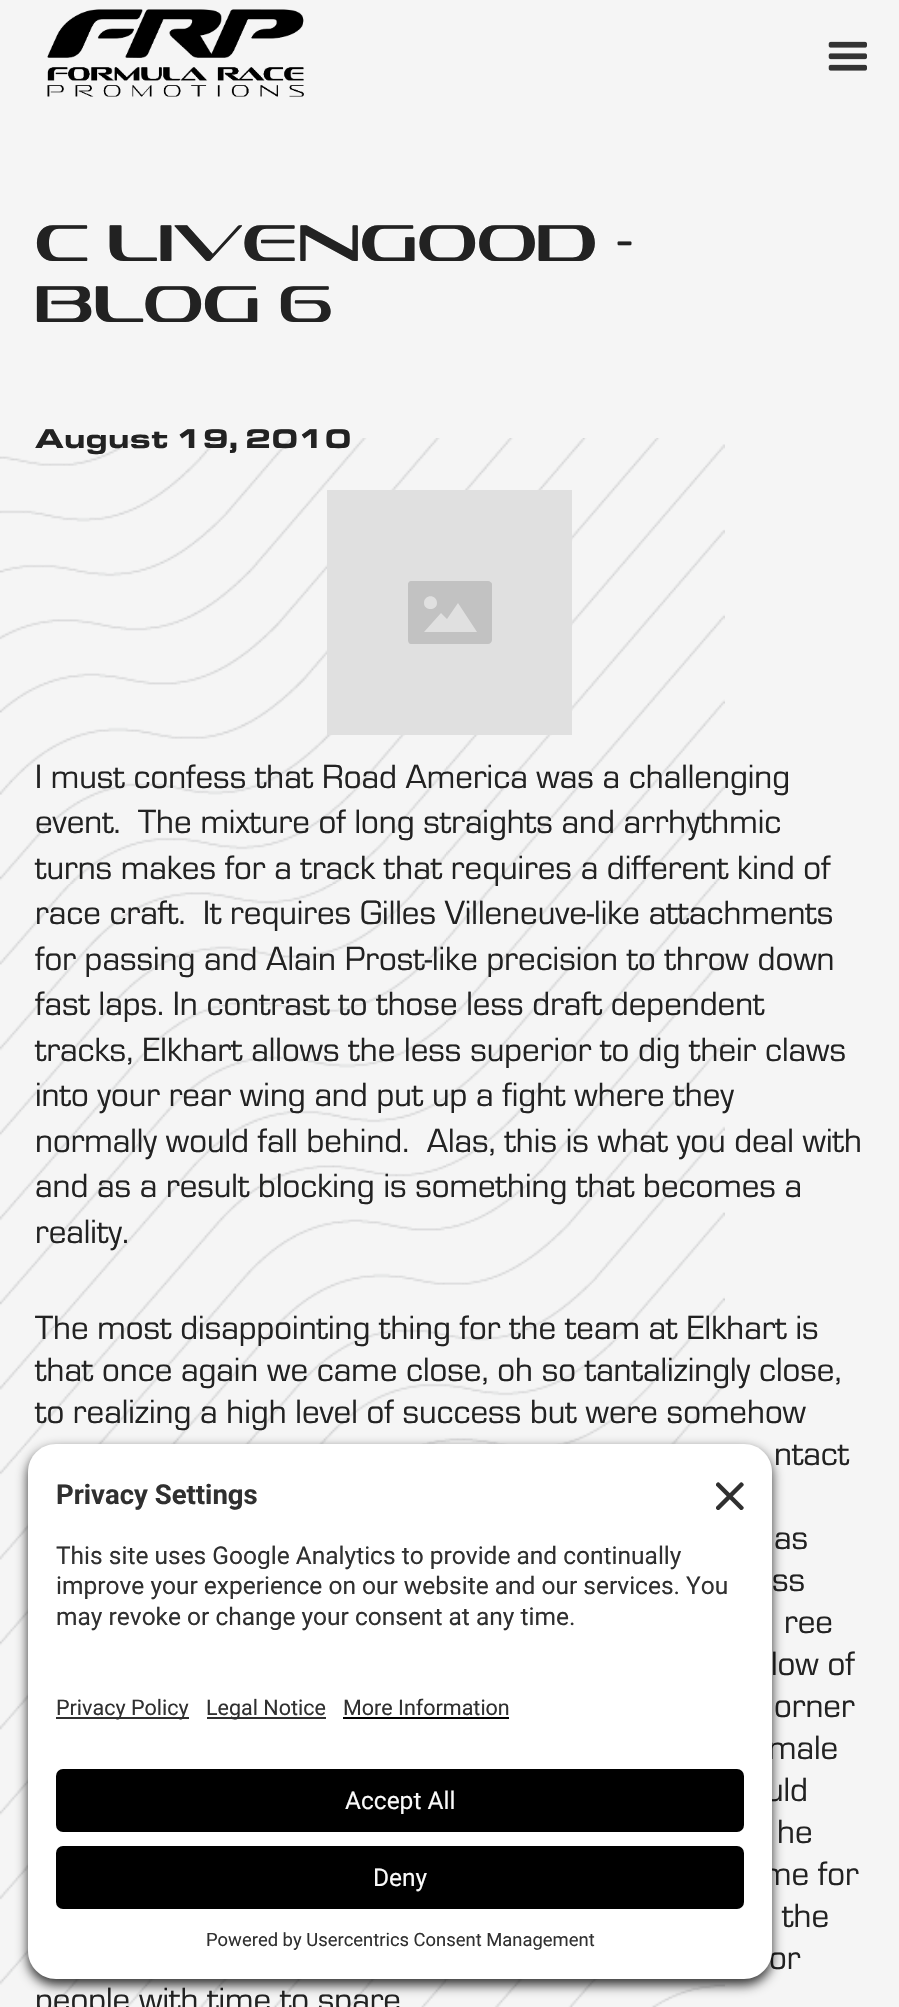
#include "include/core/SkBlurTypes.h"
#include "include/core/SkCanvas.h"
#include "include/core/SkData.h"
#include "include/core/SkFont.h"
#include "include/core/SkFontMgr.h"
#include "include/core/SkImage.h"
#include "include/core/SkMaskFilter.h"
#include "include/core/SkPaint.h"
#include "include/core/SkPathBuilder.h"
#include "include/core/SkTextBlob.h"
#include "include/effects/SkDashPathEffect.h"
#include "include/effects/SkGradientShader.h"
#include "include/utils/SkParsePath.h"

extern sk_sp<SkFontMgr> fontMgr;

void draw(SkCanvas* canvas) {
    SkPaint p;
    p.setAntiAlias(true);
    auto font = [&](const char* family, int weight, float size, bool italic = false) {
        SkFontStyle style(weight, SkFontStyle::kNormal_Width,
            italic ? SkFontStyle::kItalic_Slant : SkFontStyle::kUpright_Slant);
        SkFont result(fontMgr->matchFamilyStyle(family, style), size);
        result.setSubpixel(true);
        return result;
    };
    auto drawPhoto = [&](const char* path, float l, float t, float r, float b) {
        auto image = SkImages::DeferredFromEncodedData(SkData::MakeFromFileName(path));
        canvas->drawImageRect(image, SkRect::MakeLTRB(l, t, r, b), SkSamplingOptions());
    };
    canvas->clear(0xFFF5F5F5);
    drawPhoto("media/1.png", 47, 9, 304, 97);
    drawPhoto("media/2.png", 828, 41, 867, 71);
    auto font1 = font("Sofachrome", 400, 52.5f);
    p.setColor(0xFF222222);
    canvas->drawString("C Livengood -", 35, 261, font1, p);
    canvas->drawString("Blog 6", 35, 322, font1, p);
    drawPhoto("media/3.png", 0, 438, 725, 2007);
    auto font2 = font("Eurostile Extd", 900, 28);
    canvas->drawString("August 19, 2010", 35, 448, font2, p);
    p.setColor(0xFFE0E0E0);
    canvas->drawRect(SkRect::MakeLTRB(327, 490, 572, 735), p);
    p.setColor(0xFFC2C2C2);
    canvas->drawPath(SkPathBuilder().moveTo(488, 644).lineTo(411, 644).cubicTo(409, 644, 408, 642, 408, 640).lineTo(408, 584).cubicTo(408, 583, 409, 581, 411, 581).lineTo(488, 581).cubicTo(490, 581, 492, 583, 492, 584).lineTo(492, 640).cubicTo(492, 642, 490, 644, 488, 644).close().moveTo(447, 619).lineTo(441, 613).lineTo(424, 632).lineTo(477, 632).lineTo(458, 603).close().moveTo(437, 603).cubicTo(437, 594, 424, 594, 424, 603).cubicTo(424, 611, 437, 611, 437, 603).close().detach(), p);
    auto font3 = font("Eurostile", 400, 35);
    p.setColor(0xFF222222);
    {
        const struct { const char* s; float x, y; } items[] = {
            {"I must confess that Road America was a challenging", 35, 788},
            {"event.  The mixture of long straights and arrhythmic", 35, 833},
            {"turns makes for a track that requires a different kind of", 35, 879},
            {"race craft.  It requires Gilles Villeneuve-like attachments", 35, 924},
            {"for passing and Alain Prost-like precision to throw down", 35, 970},
            {"fast laps. In contrast to those less draft dependent", 35, 1015},
            {"tracks, Elkhart allows the less superior to dig their claws", 35, 1061},
            {"into your rear wing and put up a fight where they", 35, 1106},
            {"normally would fall behind.  Alas, this is what you deal with", 35, 1152},
            {"and as a result blocking is something that becomes a", 35, 1197},
            {"reality.", 35, 1243},
            {"The most disappointing thing for the team at Elkhart is", 35, 1339},
            {"that once again we came close, oh so tantalizingly close,", 35, 1381},
            {"to realizing a high level of success but were somehow", 35, 1423},
            {"ntact", 774, 1465},
            {"as", 774, 1549},
            {"ss", 772, 1591},
            {"ree", 784, 1633},
            {"low of", 771, 1675},
            {"orner", 774, 1717},
            {"male", 768, 1759},
            {"uld", 766, 1801},
            {"he", 777, 1843},
            {"me for", 763, 1885},
            {"the", 782, 1927},
            {"or", 769, 1969},
            {"people with time to spare", 35, 2011},
        };
        for (auto [s, x, y] : items) {
            canvas->drawString(s, x, y, font3, p);
        }
    }
    p.setColor(0xCC000000);
    p.setMaskFilter(SkMaskFilter::MakeBlur(kNormal_SkBlurStyle, 6));
    canvas->drawRoundRect(SkRect::MakeLTRB(28, 1449, 772, 1985), 28, 28, p);
    p.setMaskFilter(nullptr);
    p.setColor(0xFFFFFFFF);
    canvas->drawPath(SkPathBuilder().moveTo(56, 1444).lineTo(744, 1444).cubicTo(759.5f, 1444, 772, 1456.5f, 772, 1472).lineTo(772, 1668).lineTo(28, 1668).lineTo(28, 1472).cubicTo(28, 1456.5f, 40.5f, 1444, 56, 1444).close().detach(), p);
    auto font4 = font("Roboto", 700, 27.5f);
    p.setColor(0xFF303030);
    canvas->drawString("Privacy Settings", 56, 1504, font4, p);
    drawPhoto("media/4.png", 716, 1482, 744, 1510);
    auto font5 = font("Roboto", 400, 24.5f);
    {
        const struct { const char* s; float x, y; } items[] = {
            {"This site uses Google Analytics to provide and continually", 56, 1564},
            {"improve your experience on our website and our services. You", 56, 1594},
            {"may revoke or change your consent at any time.", 56, 1625},
        };
        for (auto [s, x, y] : items) {
            canvas->drawString(s, x, y, font5, p);
        }
    }
    p.setColor(0xFFFFFFFF);
    canvas->drawPath(SkPathBuilder().moveTo(28, 1668).lineTo(772, 1668).lineTo(772, 1951).cubicTo(772, 1966.5f, 759.5f, 1979, 744, 1979).lineTo(56, 1979).cubicTo(40.5f, 1979, 28, 1966.5f, 28, 1951).close().detach(), p);
    p.setColor(0xFF303030);
    canvas->drawRect(SkRect::MakeLTRB(56, 1717, 189, 1719), p);
    auto font6 = font("Roboto", 400, 21.5f);
    canvas->drawString("Privacy Policy", 56, 1715, font6, p);
    canvas->drawRect(SkRect::MakeLTRB(207, 1717, 326, 1719), p);
    canvas->drawString("Legal Notice", 206, 1715, font6, p);
    canvas->drawString("More Information", 343, 1715, font6, p);
    p.setColor(0xFF000000);
    canvas->drawRect(SkRect::MakeLTRB(343, 1717, 509, 1719), p);
    canvas->drawRoundRect(SkRect::MakeLTRB(56, 1769, 744, 1832), 7, 7, p);
    p.setColor(0xFFFAFAFA);
    canvas->drawString("Accept All", 345, 1809, font5, p);
    p.setColor(0xFF000000);
    canvas->drawRoundRect(SkRect::MakeLTRB(56, 1846, 744, 1909), 7, 7, p);
    p.setColor(0xFFFAFAFA);
    canvas->drawString("Deny", 373, 1886, font5, p);
    auto font7 = font("Roboto", 400, 18.4f);
    p.setColor(0xFF303030);
    canvas->drawString("Powered by Usercentrics Consent Management", 206, 1946, font7, p);
}
